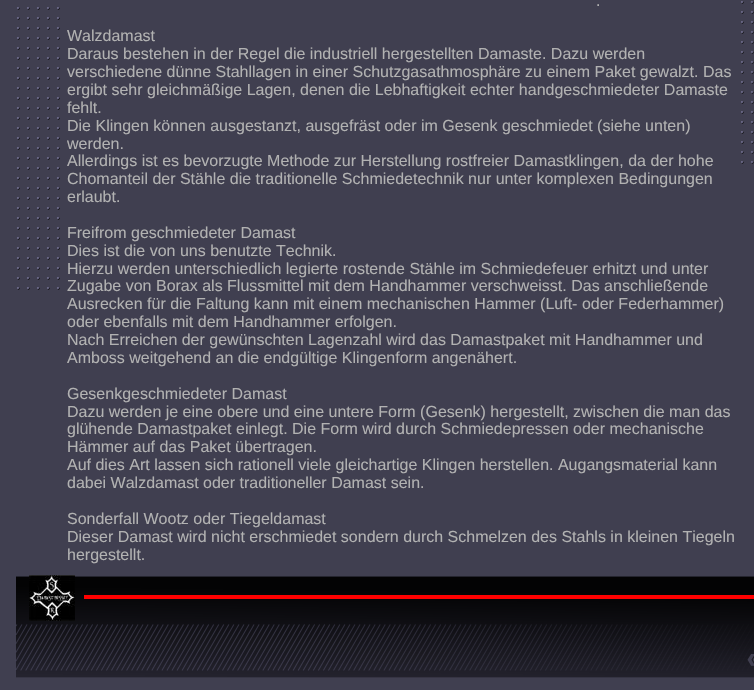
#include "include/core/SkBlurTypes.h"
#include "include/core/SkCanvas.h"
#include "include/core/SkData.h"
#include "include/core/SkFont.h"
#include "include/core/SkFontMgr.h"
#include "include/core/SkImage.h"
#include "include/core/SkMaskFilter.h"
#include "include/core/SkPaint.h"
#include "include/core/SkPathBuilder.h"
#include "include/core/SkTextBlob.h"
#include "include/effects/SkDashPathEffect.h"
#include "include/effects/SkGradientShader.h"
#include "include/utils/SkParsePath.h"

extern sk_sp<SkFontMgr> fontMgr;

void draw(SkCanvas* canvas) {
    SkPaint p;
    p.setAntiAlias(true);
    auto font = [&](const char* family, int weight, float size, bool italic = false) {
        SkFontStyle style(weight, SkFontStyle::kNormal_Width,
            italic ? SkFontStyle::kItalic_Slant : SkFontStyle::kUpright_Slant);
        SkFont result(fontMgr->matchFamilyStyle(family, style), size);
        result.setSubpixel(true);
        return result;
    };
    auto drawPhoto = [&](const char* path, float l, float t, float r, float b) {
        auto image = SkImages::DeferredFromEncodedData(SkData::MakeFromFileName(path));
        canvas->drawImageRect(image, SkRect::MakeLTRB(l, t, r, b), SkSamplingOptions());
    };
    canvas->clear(0xFF403F50);
    drawPhoto("media/1.png", 17, 7, 60, 290);
    auto font1 = font("Liberation Sans", 400, 16);
    p.setColor(0xFFB2B2B2);
    {
        const struct { const char* s; float x, y; } items[] = {
            {".", 596, 6},
            {"Walzdamast", 67, 41},
            {"Daraus bestehen in der Regel die industriell hergestellten Damaste. Dazu werden", 67, 59},
            {"verschiedene dünne Stahllagen in einer Schutzgasathmosphäre zu einem Paket gewalzt. Das", 67, 77},
            {"ergibt sehr gleichmäßige Lagen, denen die Lebhaftigkeit echter handgeschmiedeter Damaste", 67, 95},
            {"fehlt.", 67, 113},
            {"Die Klingen können ausgestanzt, ausgefräst oder im Gesenk geschmiedet (siehe unten)", 67, 131},
            {"werden.", 67, 149},
            {"Allerdings ist es bevorzugte Methode zur Herstellung rostfreier Damastklingen, da der hohe", 67, 166},
            {"Chomanteil der Stähle die traditionelle Schmiedetechnik nur unter komplexen Bedingungen", 67, 184},
            {"erlaubt.", 67, 202},
            {"Freifrom geschmiedeter Damast", 67, 238},
            {"Dies ist die von uns benutzte Technik.", 67, 256},
            {"Hierzu werden unterschiedlich legierte rostende Stähle im Schmiedefeuer erhitzt und unter", 67, 274},
            {"Zugabe von Borax als Flussmittel mit dem Handhammer verschweisst. Das anschließende", 67, 291},
            {"Ausrecken für die Faltung kann mit einem mechanischen Hammer (Luft- oder Federhammer)", 67, 309},
            {"oder ebenfalls mit dem Handhammer erfolgen.", 67, 327},
            {"Nach Erreichen der gewünschten Lagenzahl wird das Damastpaket mit Handhammer und", 67, 345},
            {"Amboss weitgehend an die endgültige Klingenform angenähert.", 67, 363},
            {"Gesenkgeschmiedeter Damast", 67, 399},
            {"Dazu werden je eine obere und eine untere Form (Gesenk) hergestellt, zwischen die man das", 67, 417},
            {"glühende Damastpaket einlegt. Die Form wird durch Schmiedepressen oder mechanische", 67, 434},
            {"Hämmer auf das Paket übertragen.", 67, 452},
            {"Auf dies Art lassen sich rationell viele gleichartige Klingen herstellen. Augangsmaterial kann", 67, 470},
            {"dabei Walzdamast oder traditioneller Damast sein.", 67, 488},
            {"Sonderfall Wootz oder Tiegeldamast", 67, 524},
            {"Dieser Damast wird nicht erschmiedet sondern durch Schmelzen des Stahls in kleinen Tiegeln", 67, 542},
            {"hergestellt.", 67, 560},
        };
        for (auto [s, x, y] : items) {
            canvas->drawString(s, x, y, font1, p);
        }
    }
    drawPhoto("media/2.png", 741, 1, 754, 164);
    drawPhoto("media/4.png", 15, 576, 754, 678);
    drawPhoto("media/3.png", 29, 575, 75, 621);
    p.setColor(0xFFFF0000);
    canvas->drawRect(SkRect::MakeLTRB(84, 595, 754, 599), p);
    drawPhoto("media/5.png", 747, 654, 754, 666);
}
